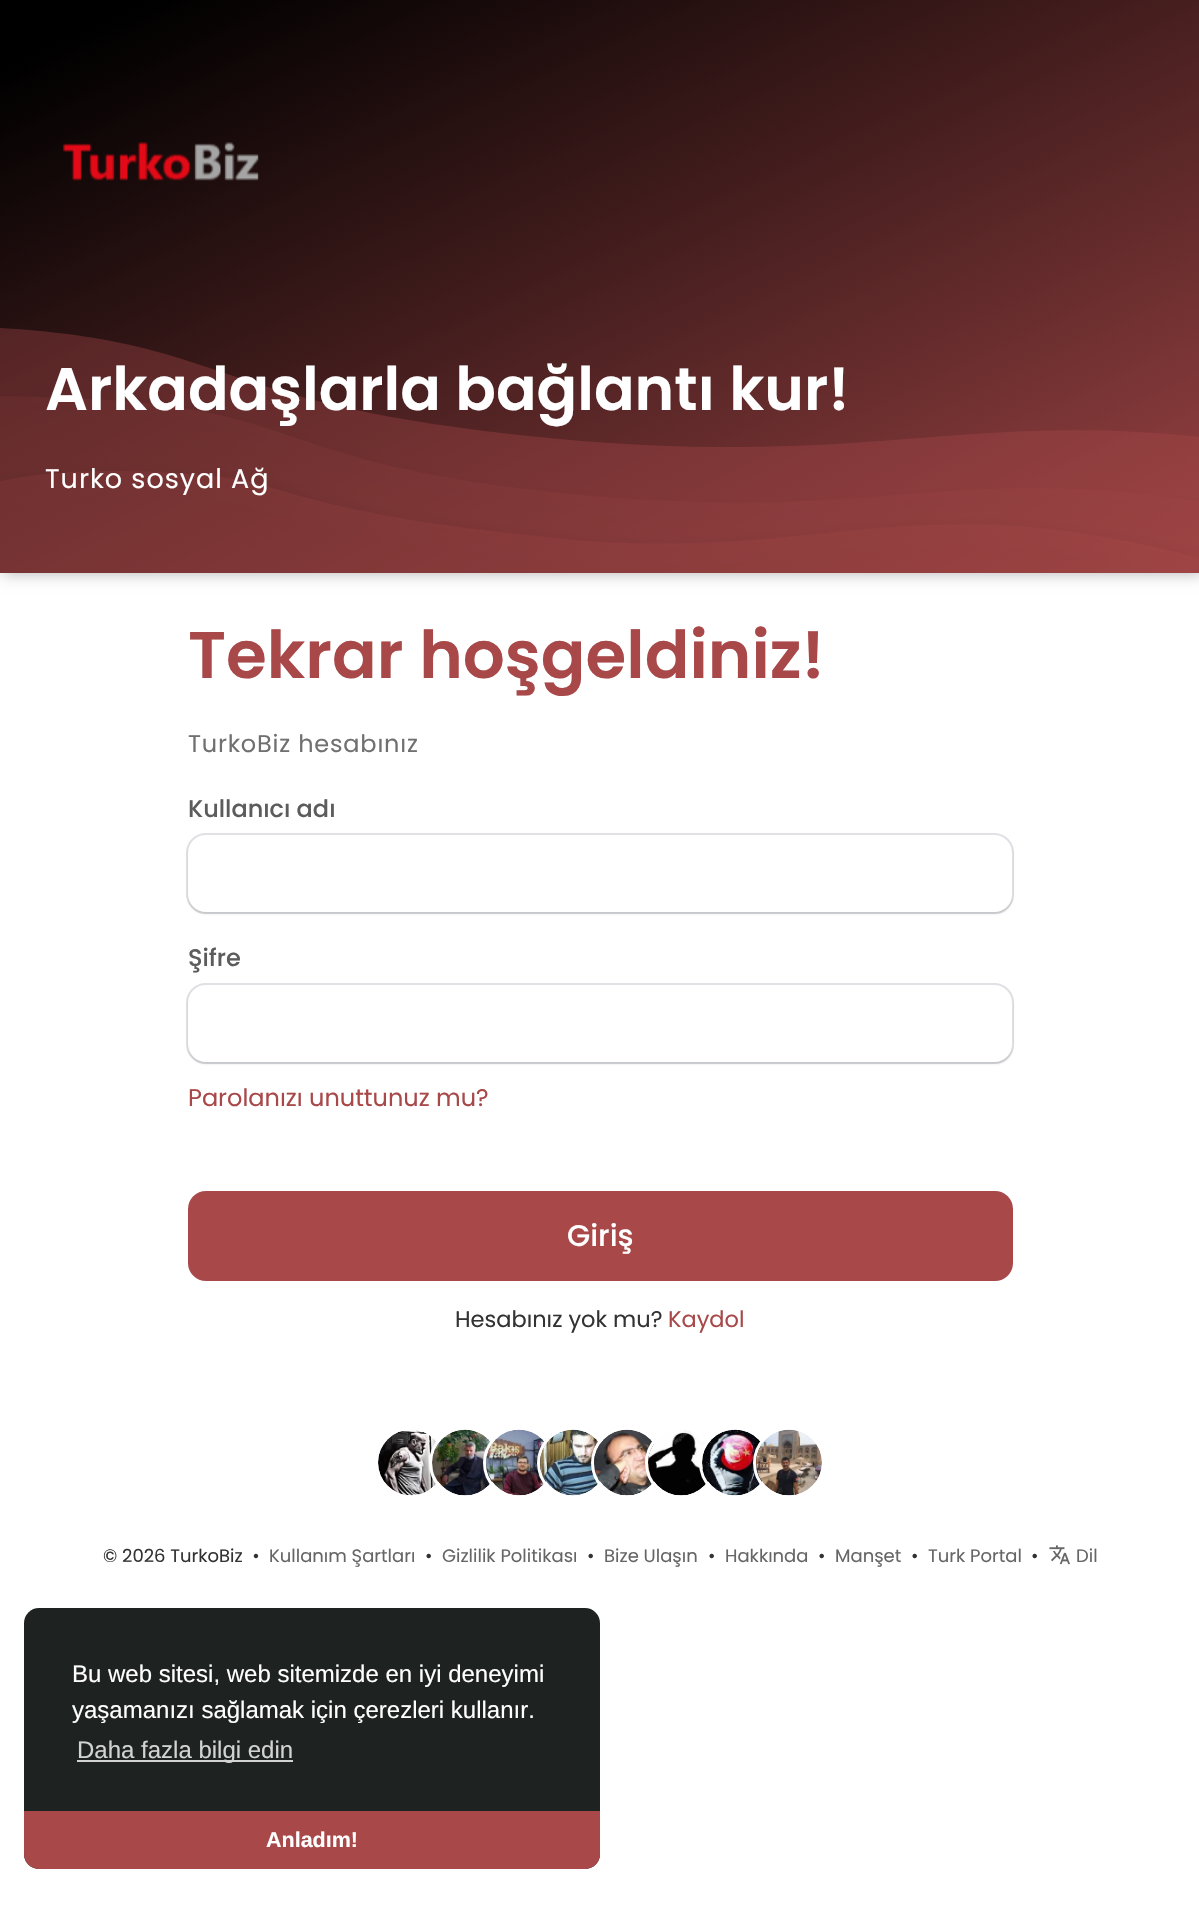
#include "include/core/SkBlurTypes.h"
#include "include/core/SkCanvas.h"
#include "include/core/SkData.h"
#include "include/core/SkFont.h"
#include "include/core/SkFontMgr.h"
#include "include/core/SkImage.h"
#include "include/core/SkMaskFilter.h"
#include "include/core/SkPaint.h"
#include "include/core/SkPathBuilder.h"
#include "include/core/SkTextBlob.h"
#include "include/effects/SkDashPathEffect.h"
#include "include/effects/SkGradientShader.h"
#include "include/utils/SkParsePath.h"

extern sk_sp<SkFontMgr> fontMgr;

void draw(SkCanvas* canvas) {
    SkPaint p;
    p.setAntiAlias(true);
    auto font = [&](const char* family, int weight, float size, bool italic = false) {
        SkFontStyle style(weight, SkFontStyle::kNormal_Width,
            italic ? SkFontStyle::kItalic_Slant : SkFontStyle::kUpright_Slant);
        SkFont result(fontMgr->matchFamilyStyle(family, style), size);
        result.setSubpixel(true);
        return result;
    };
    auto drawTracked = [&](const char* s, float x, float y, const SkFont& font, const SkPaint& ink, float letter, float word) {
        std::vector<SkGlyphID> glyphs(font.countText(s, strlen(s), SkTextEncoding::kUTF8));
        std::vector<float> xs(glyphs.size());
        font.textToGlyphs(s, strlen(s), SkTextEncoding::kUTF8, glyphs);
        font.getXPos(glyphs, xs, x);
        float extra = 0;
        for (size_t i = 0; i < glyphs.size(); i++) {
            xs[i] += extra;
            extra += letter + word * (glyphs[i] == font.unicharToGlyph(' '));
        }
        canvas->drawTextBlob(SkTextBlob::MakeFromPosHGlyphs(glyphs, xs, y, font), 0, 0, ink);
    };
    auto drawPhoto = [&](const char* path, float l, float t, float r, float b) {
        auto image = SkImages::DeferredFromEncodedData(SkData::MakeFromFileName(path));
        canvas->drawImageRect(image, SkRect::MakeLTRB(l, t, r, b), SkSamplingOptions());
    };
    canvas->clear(0xFFFFFFFF);
    p.setColor(0x4D000000);
    p.setMaskFilter(SkMaskFilter::MakeBlur(kNormal_SkBlurStyle, 7.5f));
    canvas->drawRect(SkRect::MakeLTRB(3, 0, 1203, 573), p);
    p.setMaskFilter(nullptr);
    drawPhoto("media/1.png", 0, 0, 1199, 573);
    drawPhoto("media/2.png", 62, 142, 259, 181);
    auto font1 = font("Poppins", 600, 60);
    p.setColor(0xFFFFFFFF);
    canvas->drawString("Arkadaşlarla bağlantı kur!", 45, 410, font1, p);
    auto font2 = font("Poppins", 400, 27);
    drawTracked("Turko sosyal Ağ", 45, 488, font2, p, 1, 0);
    auto font3 = font("Poppins", 600, 66);
    p.setColor(0xFFA84849);
    canvas->drawString("Tekrar hoşgeldiniz!", 188, 678, font3, p);
    auto font4 = font("Poppins", 400, 24);
    p.setColor(0xFF707070);
    drawTracked("TurkoBiz hesabınız", 188, 752, font4, p, 0.8f, 0);
    auto font5 = font("Poppins", 500, 24);
    p.setColor(0xFF5C5C5C);
    canvas->drawString("Kullanıcı adı", 188, 817, font5, p);
    canvas->save();
    canvas->clipPath(SkPathBuilder(SkPathFillType::kEvenOdd).moveTo(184, 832).lineTo(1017, 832).lineTo(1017, 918).lineTo(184, 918).close().moveTo(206, 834).lineTo(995, 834).cubicTo(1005, 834, 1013, 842, 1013, 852).lineTo(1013, 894).cubicTo(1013, 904, 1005, 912, 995, 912).lineTo(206, 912).cubicTo(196, 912, 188, 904, 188, 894).lineTo(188, 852).cubicTo(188, 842, 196, 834, 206, 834).close().detach(), true);
    p.setColor(0x1F000000);
    p.setMaskFilter(SkMaskFilter::MakeBlur(kNormal_SkBlurStyle, 1));
    canvas->drawRoundRect(SkRect::MakeLTRB(188, 836, 1013, 914), 18, 18, p);
    p.setMaskFilter(nullptr);
    canvas->restore();
    p.setStyle(SkPaint::kStroke_Style);
    p.setStrokeWidth(2);
    p.setColor(0x293C4257);
    canvas->drawRoundRect(SkRect::MakeLTRB(187, 834, 1013, 913), 19, 19, p);
    p.setStyle(SkPaint::kFill_Style);
    p.setColor(0xFF5C5C5C);
    canvas->drawString("Şifre", 188, 966, font5, p);
    canvas->save();
    canvas->clipPath(SkPathBuilder(SkPathFillType::kEvenOdd).moveTo(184, 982).lineTo(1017, 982).lineTo(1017, 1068).lineTo(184, 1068).close().moveTo(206, 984).lineTo(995, 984).cubicTo(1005, 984, 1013, 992, 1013, 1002).lineTo(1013, 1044).cubicTo(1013, 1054, 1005, 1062, 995, 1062).lineTo(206, 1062).cubicTo(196, 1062, 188, 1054, 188, 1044).lineTo(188, 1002).cubicTo(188, 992, 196, 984, 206, 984).close().detach(), true);
    p.setColor(0x1F000000);
    p.setMaskFilter(SkMaskFilter::MakeBlur(kNormal_SkBlurStyle, 1));
    canvas->drawRoundRect(SkRect::MakeLTRB(188, 986, 1013, 1064), 18, 18, p);
    p.setMaskFilter(nullptr);
    canvas->restore();
    p.setStyle(SkPaint::kStroke_Style);
    p.setColor(0x293C4257);
    canvas->drawRoundRect(SkRect::MakeLTRB(187, 984, 1013, 1063), 19, 19, p);
    p.setStyle(SkPaint::kFill_Style);
    p.setColor(0xFFA84849);
    canvas->drawString("Parolanızı unuttunuz mu?", 188, 1106, font4, p);
    canvas->drawRoundRect(SkRect::MakeLTRB(188, 1191, 1013, 1281), 18, 18, p);
    auto font6 = font("Poppins", 500, 30);
    p.setColor(0xFFFFFFFF);
    canvas->drawString("Giriş", 567, 1246, font6, p);
    auto font7 = font("Poppins", 400, 22.5f);
    p.setColor(0xFF333333);
    canvas->drawString("Hesabınız yok mu?", 455, 1327, font7, p);
    p.setColor(0xFFA84849);
    canvas->drawString("Kaydol", 668, 1327, font7, p);
    drawPhoto("media/3.png", 378, 1430, 438, 1496);
    p.setStyle(SkPaint::kStroke_Style);
    p.setStrokeWidth(3);
    p.setColor(0xFFFFFFFF);
    canvas->drawCircle(465, 1463, 34.5f, p);
    drawPhoto("media/4.png", 432, 1429, 492, 1496);
    canvas->drawCircle(519, 1463, 34.5f, p);
    drawPhoto("media/5.png", 486, 1429, 546, 1496);
    canvas->drawCircle(573, 1463, 34.5f, p);
    drawPhoto("media/6.png", 540, 1429, 600, 1496);
    canvas->drawCircle(627, 1463, 34.5f, p);
    drawPhoto("media/7.png", 594, 1429, 654, 1496);
    canvas->drawCircle(681, 1463, 34.5f, p);
    drawPhoto("media/8.png", 648, 1430, 708, 1496);
    canvas->drawCircle(735, 1463, 34.5f, p);
    drawPhoto("media/9.png", 702, 1429, 762, 1496);
    canvas->drawCircle(789, 1463, 34.5f, p);
    drawPhoto("media/10.png", 756, 1429, 822, 1496);
    auto font8 = font("Poppins", 400, 18);
    p.setStyle(SkPaint::kFill_Style);
    p.setColor(0xFF333333);
    canvas->drawString("© 2026 TurkoBiz  •", 103, 1562, font8, p);
    p.setColor(0xFF666666);
    canvas->drawString("Kullanım Şartları", 269, 1562, font8, p);
    p.setColor(0xFF333333);
    canvas->drawString("•", 425, 1562, font8, p);
    p.setColor(0xFF666666);
    canvas->drawString("Gizlilik Politikası", 442, 1562, font8, p);
    p.setColor(0xFF333333);
    canvas->drawString("•", 587, 1562, font8, p);
    p.setColor(0xFF666666);
    canvas->drawString("Bize Ulaşın", 604, 1562, font8, p);
    p.setColor(0xFF333333);
    canvas->drawString("•", 708, 1562, font8, p);
    p.setColor(0xFF666666);
    canvas->drawString("Hakkında", 725, 1562, font8, p);
    p.setColor(0xFF333333);
    canvas->drawString("•", 818, 1562, font8, p);
    p.setColor(0xFF666666);
    canvas->drawString("Manşet", 835, 1562, font8, p);
    p.setColor(0xFF333333);
    canvas->drawString("•", 911, 1562, font8, p);
    p.setColor(0xFF666666);
    canvas->drawString("Turk Portal", 928, 1562, font8, p);
    p.setColor(0xFF333333);
    canvas->drawString("•", 1031, 1562, font8, p);
    drawPhoto("media/11.png", 1049, 1545, 1070, 1565);
    p.setColor(0xFF666666);
    canvas->drawString("Dil", 1076, 1562, font8, p);
    p.setColor(0xFF1E2321);
    canvas->drawRoundRect(SkRect::MakeLTRB(24, 1608, 600, 1869), 15, 15, p);
    auto font9 = font("Liberation Sans", 400, 24);
    p.setColor(0xFFFFFFFF);
    canvas->drawString("Bu web sitesi, web sitemizde en iyi deneyimi", 72, 1682, font9, p);
    canvas->drawString("yaşamanızı sağlamak için çerezleri kullanır.", 72, 1718, font9, p);
    p.setColor(0xFFD2D3D3);
    canvas->drawRect(SkRect::MakeLTRB(77, 1760, 293, 1762), p);
    canvas->drawString("Daha fazla bilgi edin", 77, 1758, font9, p);
    p.setColor(0xFFA84849);
    canvas->drawPath(SkPathBuilder().moveTo(24, 1811).lineTo(600, 1811).lineTo(600, 1854).cubicTo(600, 1862.5f, 593.5f, 1869, 585, 1869).lineTo(39, 1869).cubicTo(30.5f, 1869, 24, 1862.5f, 24, 1854).close().detach(), p);
    auto font10 = font("Liberation Sans", 700, 21.5f);
    p.setColor(0xFFFFFFFF);
    canvas->drawString("Anladım!", 266, 1847, font10, p);
}
